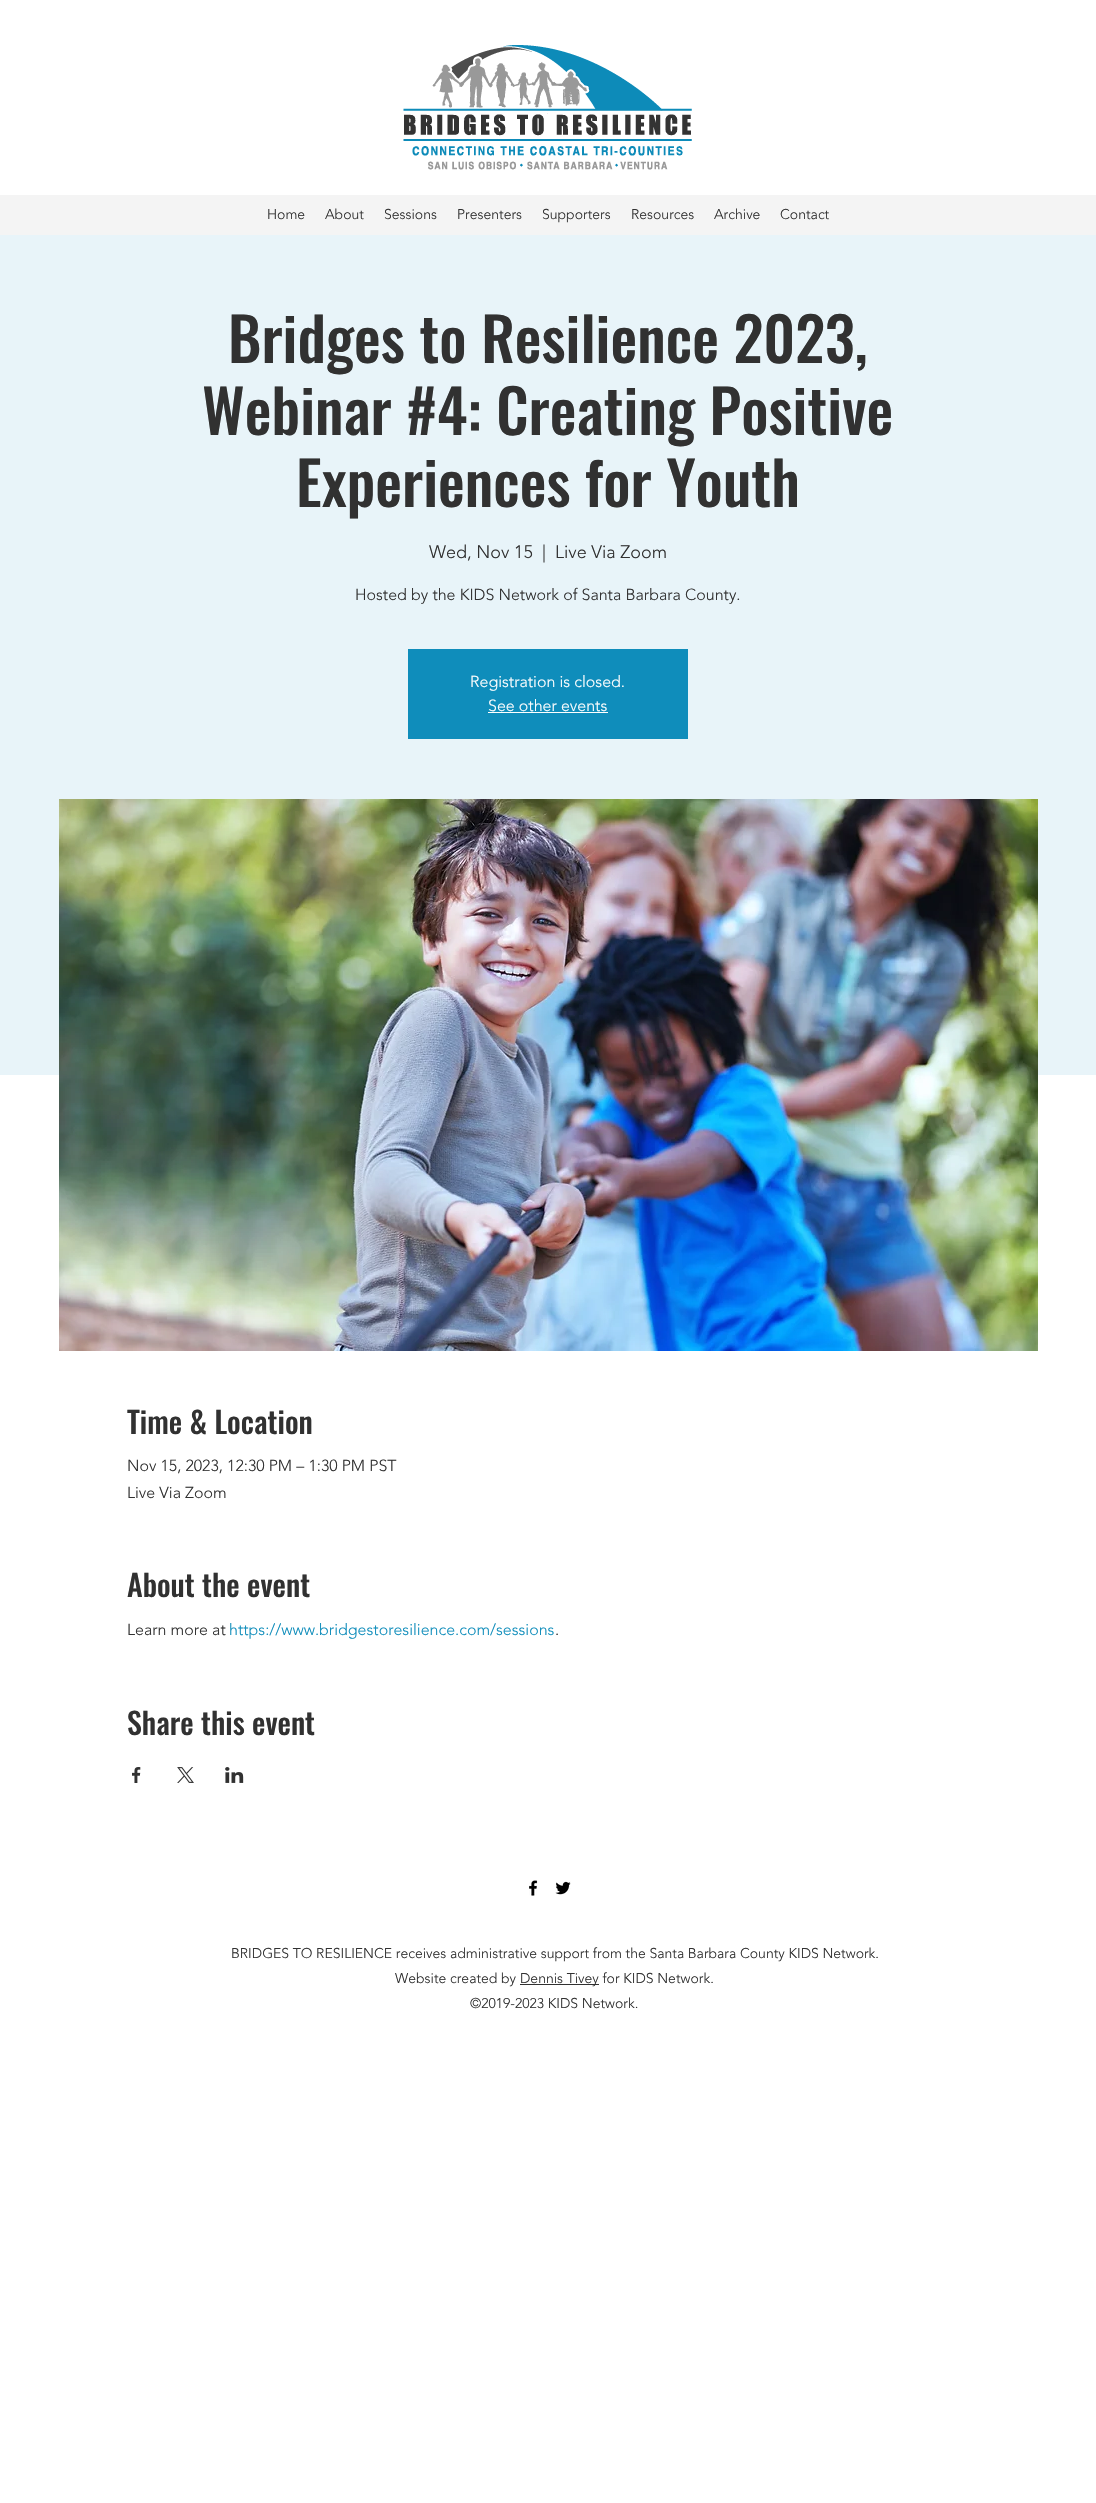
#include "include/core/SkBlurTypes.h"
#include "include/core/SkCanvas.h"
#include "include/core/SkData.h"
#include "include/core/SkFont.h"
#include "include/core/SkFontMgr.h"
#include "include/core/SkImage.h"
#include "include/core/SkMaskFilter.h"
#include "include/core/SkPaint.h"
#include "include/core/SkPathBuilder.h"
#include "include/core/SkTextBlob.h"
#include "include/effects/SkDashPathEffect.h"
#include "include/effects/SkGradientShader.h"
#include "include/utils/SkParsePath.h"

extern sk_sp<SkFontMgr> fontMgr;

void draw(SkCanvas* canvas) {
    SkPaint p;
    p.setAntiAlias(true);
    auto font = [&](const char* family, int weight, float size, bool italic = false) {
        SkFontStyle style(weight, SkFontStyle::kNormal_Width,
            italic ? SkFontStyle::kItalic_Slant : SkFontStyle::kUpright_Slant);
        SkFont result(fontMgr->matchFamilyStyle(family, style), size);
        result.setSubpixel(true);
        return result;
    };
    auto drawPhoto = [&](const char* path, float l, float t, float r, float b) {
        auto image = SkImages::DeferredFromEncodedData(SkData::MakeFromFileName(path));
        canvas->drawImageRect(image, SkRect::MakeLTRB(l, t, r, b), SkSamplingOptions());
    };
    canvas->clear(0xFFFFFFFF);
    drawPhoto("media/1.png", 403, 45, 692, 170);
    p.setColor(0xFFF4F4F4);
    canvas->drawRect(SkRect::MakeLTRB(0, 195, 1096, 235), p);
    auto font1 = font("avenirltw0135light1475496", 300, 14);
    p.setColor(0xFF313131);
    {
        const struct { const char* s; float x, y; } items[] = {
            {"Home", 267, 219},
            {"About", 325, 219},
            {"Sessions", 384, 219},
            {"Presenters", 457, 219},
            {"Supporters", 542, 219},
            {"Resources", 631, 219},
            {"Archive", 714, 219},
            {"Contact", 780, 219},
        };
        for (auto [s, x, y] : items) {
            canvas->drawString(s, x, y, font1, p);
        }
    }
    p.setColor(0xFFE8F4F9);
    canvas->drawRect(SkRect::MakeLTRB(0, 235, 1096, 1075), p);
    auto font2 = font("Oswald", 500, 60);
    p.setColor(0xFF313131);
    {
        const struct { const char* s; float x, y; } items[] = {
            {"Bridges to Resilience 2023,", 228, 363},
            {"Webinar #4: Creating Positive", 202, 435},
            {"Experiences for Youth", 296, 507},
        };
        for (auto [s, x, y] : items) {
            canvas->drawString(s, x, y, font2, p);
        }
    }
    auto font3 = font("avenirltw0135light1475496", 300, 18);
    {
        const struct { const char* s; float x, y; } items[] = {
            {"Wed, Nov 15", 429, 558},
            {"|", 542, 558},
            {"Live Via Zoom", 555, 558},
        };
        for (auto [s, x, y] : items) {
            canvas->drawString(s, x, y, font3, p);
        }
    }
    auto font4 = font("avenirltw0135light1475496", 300, 16);
    canvas->drawString("Hosted by the KIDS Network of Santa Barbara County.", 355, 600, font4, p);
    p.setColor(0xFF0F8DBB);
    canvas->drawRect(SkRect::MakeLTRB(408, 649, 688, 739), p);
    p.setColor(0xFFFFFFFF);
    canvas->drawString("Registration is closed.", 470, 687, font4, p);
    canvas->drawString("See other events", 488, 711, font4, p);
    canvas->drawRect(SkRect::MakeLTRB(488, 712, 608, 713), p);
    drawPhoto("media/2.png", 59, 799, 1038, 1351);
    auto font5 = font("Oswald", 500, 30);
    p.setColor(0xFF313131);
    canvas->drawString("Time & Location", 127, 1434, font5, p);
    canvas->drawString("Nov 15, 2023, 12:30 PM – 1:30 PM PST", 127, 1471, font4, p);
    canvas->drawString("Live Via Zoom", 127, 1498, font4, p);
    canvas->drawString("About the event", 127, 1597, font5, p);
    canvas->drawString("Learn more at", 127, 1635, font4, p);
    p.setColor(0xFF0F8DBB);
    canvas->drawString("https://www.bridgestoresilience.com/sessions", 229, 1635, font4, p);
    p.setColor(0xFF313131);
    canvas->drawString(".", 555, 1635, font4, p);
    canvas->drawString("Share this event", 127, 1735, font5, p);
    drawPhoto("media/3.png", 132, 1767, 141, 1783);
    drawPhoto("media/4.png", 177, 1767, 194, 1783);
    drawPhoto("media/5.png", 225, 1767, 244, 1783);
    drawPhoto("media/6.png", 529, 1880, 538, 1896);
    drawPhoto("media/7.png", 555, 1881, 571, 1895);
    canvas->drawString("BRIDGES TO RESILIENCE receives administrative support from the Santa Barbara County KIDS Network.", 231, 1958, font1, p);
    canvas->drawString("Website created by", 395, 1983, font1, p);
    canvas->drawRect(SkRect::MakeLTRB(520, 1984, 599, 1985), p);
    canvas->drawString("Dennis Tivey for KIDS Network.", 520, 1983, font1, p);
    canvas->drawString("©2019-2023 KIDS Network.", 470, 2008, font1, p);
}
